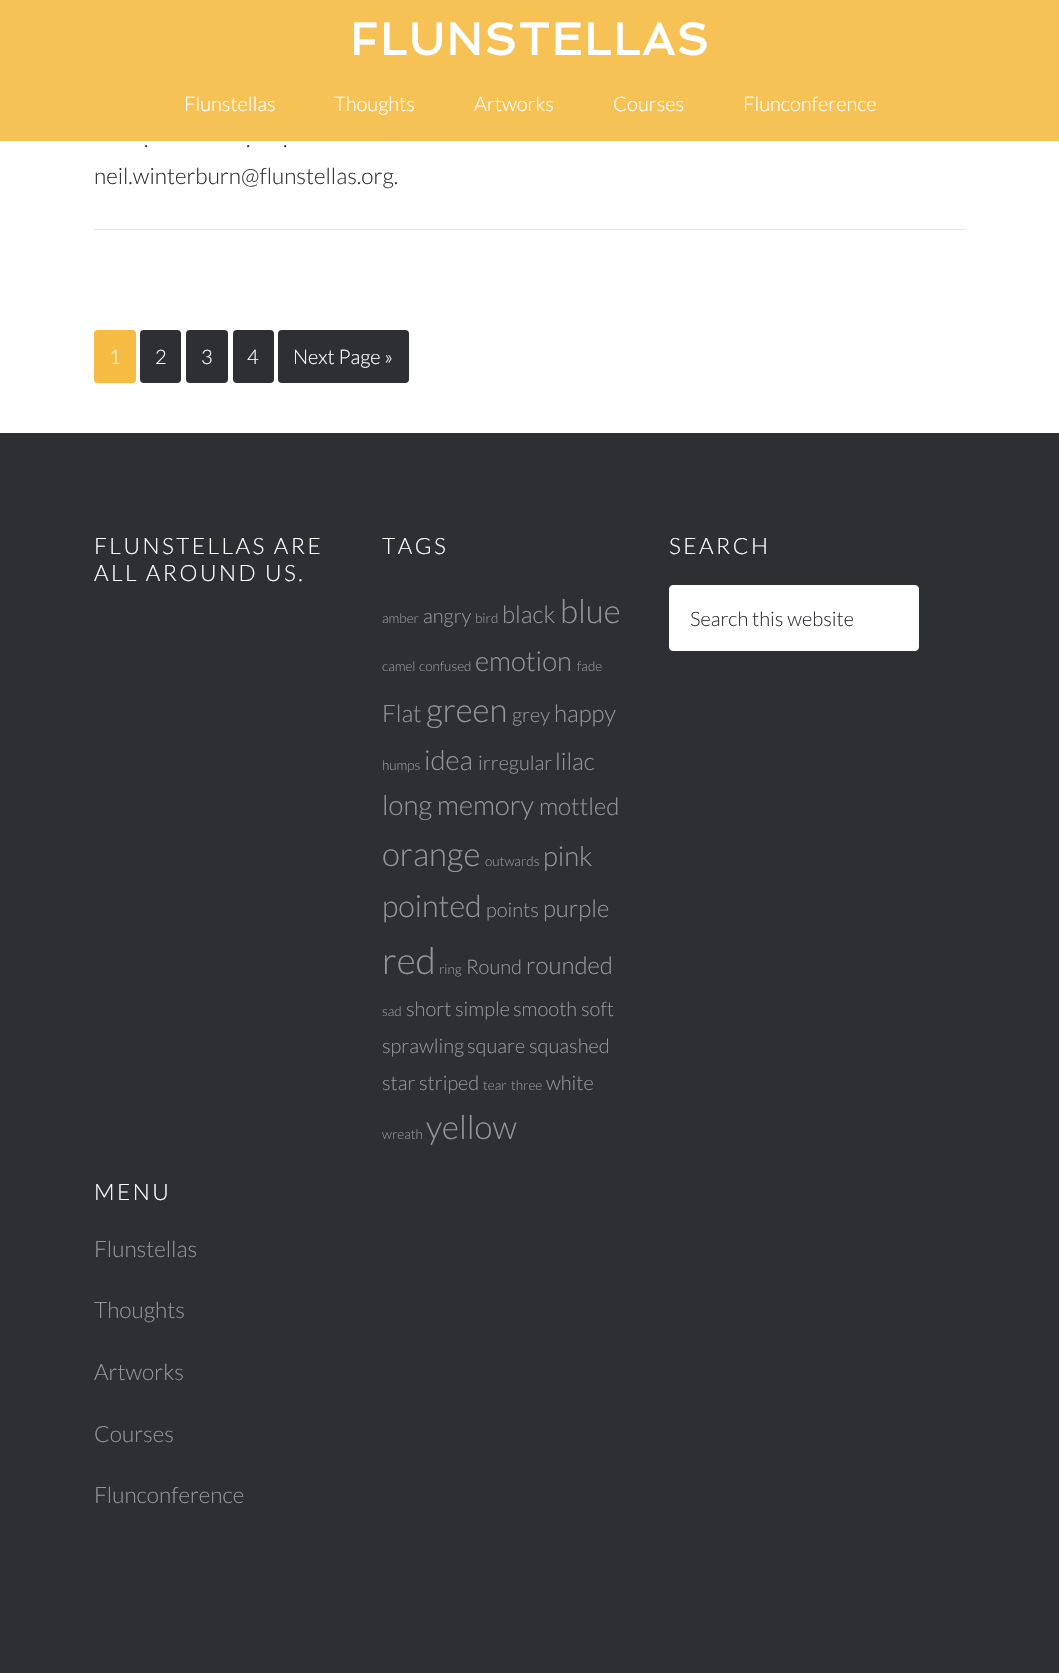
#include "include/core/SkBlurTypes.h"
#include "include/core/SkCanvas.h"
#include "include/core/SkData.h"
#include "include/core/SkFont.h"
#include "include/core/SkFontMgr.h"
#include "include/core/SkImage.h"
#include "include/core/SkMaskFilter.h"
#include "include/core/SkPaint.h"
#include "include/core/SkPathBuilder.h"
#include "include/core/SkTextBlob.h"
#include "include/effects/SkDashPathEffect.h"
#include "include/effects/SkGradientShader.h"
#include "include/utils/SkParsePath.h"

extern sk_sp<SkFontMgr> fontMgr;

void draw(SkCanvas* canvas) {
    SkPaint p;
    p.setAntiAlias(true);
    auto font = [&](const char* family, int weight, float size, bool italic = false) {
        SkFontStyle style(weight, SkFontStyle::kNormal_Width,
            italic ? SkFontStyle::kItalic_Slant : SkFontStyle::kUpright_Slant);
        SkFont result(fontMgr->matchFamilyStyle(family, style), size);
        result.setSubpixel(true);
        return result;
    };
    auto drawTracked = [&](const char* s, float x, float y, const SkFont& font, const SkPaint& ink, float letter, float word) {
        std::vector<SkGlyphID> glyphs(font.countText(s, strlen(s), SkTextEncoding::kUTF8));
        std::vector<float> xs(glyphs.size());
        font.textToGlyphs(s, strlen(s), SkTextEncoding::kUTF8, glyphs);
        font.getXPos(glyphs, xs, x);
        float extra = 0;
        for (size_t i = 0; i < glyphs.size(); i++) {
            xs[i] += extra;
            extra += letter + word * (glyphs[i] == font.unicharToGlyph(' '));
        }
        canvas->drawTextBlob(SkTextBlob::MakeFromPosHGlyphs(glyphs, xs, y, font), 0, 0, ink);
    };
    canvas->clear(0xFFFFFFFF);
    p.setColor(0xFFF7C255);
    canvas->drawRect(SkRect::MakeLTRB(0, 0, 1059, 141), p);
    auto font1 = font("Spinnaker", 700, 45);
    p.setColor(0xFFFFFFFF);
    drawTracked("FLUNSTELLAS", 350, 55, font1, p, 2.5f, 0);
    auto font2 = font("Lato", 300, 20);
    {
        const struct { const char* s; float x, y; } items[] = {
            {"Flunstellas", 184, 111},
            {"Thoughts", 334, 111},
            {"Artworks", 474, 111},
            {"Courses", 613, 111},
            {"Flunconference", 743, 111},
        };
        for (auto [s, x, y] : items) {
            canvas->drawString(s, x, y, font2, p);
        }
    }
    p.setColor(0xFFE5E5E5);
    canvas->drawRect(SkRect::MakeLTRB(94, 229, 966, 230), p);
    auto font3 = font("Lato", 300, 22.5f);
    p.setColor(0xFF2E2F33);
    {
        const struct { const char* s; float x, y; } items[] = {
            {".", 144, 147},
            {".", 246, 147},
            {".", 283, 147},
            {"neil.winterburn@flunstellas.org.", 94, 184},
        };
        for (auto [s, x, y] : items) {
            canvas->drawString(s, x, y, font3, p);
        }
    }
    p.setColor(0x1A000000);
    p.setMaskFilter(SkMaskFilter::MakeBlur(kNormal_SkBlurStyle, 0.5f));
    canvas->drawRoundRect(SkRect::MakeLTRB(94, 330, 136, 383), 4, 4, p);
    p.setMaskFilter(nullptr);
    p.setColor(0xFFF6BB42);
    canvas->drawRoundRect(SkRect::MakeLTRB(94, 330, 136, 383), 4, 4, p);
    p.setColor(0xFFFFFFFF);
    canvas->drawString("1", 109, 364, font2, p);
    p.setColor(0x1A000000);
    p.setMaskFilter(SkMaskFilter::MakeBlur(kNormal_SkBlurStyle, 0.5f));
    canvas->drawRoundRect(SkRect::MakeLTRB(140, 330, 181, 383), 4, 4, p);
    p.setMaskFilter(nullptr);
    p.setColor(0xFF2E2F33);
    canvas->drawRoundRect(SkRect::MakeLTRB(140, 330, 181, 383), 4, 4, p);
    p.setColor(0xFFFFFFFF);
    canvas->drawString("2", 155, 364, font2, p);
    p.setColor(0x1A000000);
    p.setMaskFilter(SkMaskFilter::MakeBlur(kNormal_SkBlurStyle, 0.5f));
    canvas->drawRoundRect(SkRect::MakeLTRB(186, 330, 228, 383), 4, 4, p);
    p.setMaskFilter(nullptr);
    p.setColor(0xFF2E2F33);
    canvas->drawRoundRect(SkRect::MakeLTRB(186, 330, 228, 383), 4, 4, p);
    p.setColor(0xFFFFFFFF);
    canvas->drawString("3", 201, 364, font2, p);
    p.setColor(0x1A000000);
    p.setMaskFilter(SkMaskFilter::MakeBlur(kNormal_SkBlurStyle, 0.5f));
    canvas->drawRoundRect(SkRect::MakeLTRB(233, 330, 274, 383), 4, 4, p);
    p.setMaskFilter(nullptr);
    p.setColor(0xFF2E2F33);
    canvas->drawRoundRect(SkRect::MakeLTRB(233, 330, 274, 383), 4, 4, p);
    p.setColor(0xFFFFFFFF);
    canvas->drawString("4", 247, 364, font2, p);
    p.setColor(0x1A000000);
    p.setMaskFilter(SkMaskFilter::MakeBlur(kNormal_SkBlurStyle, 0.5f));
    canvas->drawRoundRect(SkRect::MakeLTRB(278, 330, 409, 383), 4, 4, p);
    p.setMaskFilter(nullptr);
    p.setColor(0xFF2E2F33);
    canvas->drawRoundRect(SkRect::MakeLTRB(278, 330, 409, 383), 4, 4, p);
    p.setColor(0xFFFFFFFF);
    canvas->drawString("Next Page »", 293, 364, font2, p);
    p.setColor(0xFF2E2F33);
    canvas->drawRect(SkRect::MakeLTRB(0, 433, 1059, 1673), p);
    p.setColor(0xFFFFFFFF);
    {
        const struct { const char* s; float x, y; } items[] = {
            {"FLUNSTELLAS ARE", 94, 554},
            {"ALL AROUND US.", 94, 581},
            {"TAGS", 382, 554},
        };
        for (auto [s, x, y] : items) {
            drawTracked(s, x, y, font3, p, 2.5f, 0);
        }
    }
    auto font4 = font("Lato", 300, 13.5f);
    p.setColor(0xFF959595);
    canvas->drawString("amber", 382, 623, font4, p);
    canvas->drawString("angry", 423, 623, font2, p);
    canvas->drawString("bird", 475, 623, font4, p);
    auto font5 = font("Lato", 300, 24);
    canvas->drawString("black", 502, 623, font5, p);
    auto font6 = font("Lato", 300, 33);
    canvas->drawString("blue", 560, 623, font6, p);
    canvas->drawString("camel", 382, 671, font4, p);
    canvas->drawString("confused", 419, 671, font4, p);
    auto font7 = font("Lato", 300, 27.5f);
    canvas->drawString("emotion", 475, 671, font7, p);
    canvas->drawString("fade", 577, 671, font4, p);
    canvas->drawString("Flat", 382, 722, font5, p);
    canvas->drawString("green", 426, 722, font6, p);
    canvas->drawString("grey", 512, 722, font2, p);
    canvas->drawString("happy", 554, 722, font5, p);
    canvas->drawString("humps", 382, 770, font4, p);
    canvas->drawString("idea", 424, 770, font7, p);
    canvas->drawString("irregular", 478, 770, font2, p);
    canvas->drawString("lilac", 555, 770, font5, p);
    canvas->drawString("long", 382, 815, font7, p);
    canvas->drawString("memory", 437, 815, font7, p);
    canvas->drawString("mottled", 539, 815, font5, p);
    canvas->drawString("orange", 382, 866, font6, p);
    canvas->drawString("outwards", 485, 866, font4, p);
    canvas->drawString("pink", 543, 866, font7, p);
    auto font8 = font("Lato", 300, 30.5f);
    canvas->drawString("pointed", 382, 917, font8, p);
    canvas->drawString("points", 486, 917, font2, p);
    canvas->drawString("purple", 543, 917, font5, p);
    auto font9 = font("Lato", 300, 37);
    canvas->drawString("red", 382, 974, font9, p);
    canvas->drawString("ring", 439, 974, font4, p);
    canvas->drawString("Round", 466, 974, font2, p);
    canvas->drawString("rounded", 526, 974, font5, p);
    canvas->drawString("sad", 382, 1016, font4, p);
    {
        const struct { const char* s; float x, y; } items[] = {
            {"short", 406, 1016},
            {"simple", 455, 1016},
            {"smooth", 513, 1016},
            {"soft", 581, 1016},
            {"sprawling", 382, 1053},
            {"square", 467, 1053},
            {"squashed", 529, 1053},
            {"star", 382, 1090},
            {"striped", 419, 1090},
        };
        for (auto [s, x, y] : items) {
            canvas->drawString(s, x, y, font2, p);
        }
    }
    canvas->drawString("tear", 483, 1090, font4, p);
    canvas->drawString("three", 511, 1090, font4, p);
    canvas->drawString("white", 546, 1090, font2, p);
    canvas->drawString("wreath", 382, 1139, font4, p);
    canvas->drawString("yellow", 426, 1139, font6, p);
    p.setColor(0xFFFFFFFF);
    drawTracked("SEARCH", 669, 554, font3, p, 2.5f, 0);
    canvas->drawRoundRect(SkRect::MakeLTRB(669.5f, 585.5f, 918.5f, 650.5f), 3.5f, 3.5f, p);
    p.setStyle(SkPaint::kStroke_Style);
    p.setStrokeWidth(1);
    canvas->drawRoundRect(SkRect::MakeLTRB(669.5f, 585.5f, 918.5f, 650.5f), 3.5f, 3.5f, p);
    p.setStyle(SkPaint::kFill_Style);
    p.setColor(0xFF2E2F33);
    canvas->drawString("Search this website", 690, 626, font2, p);
    p.setColor(0xFFFFFFFF);
    drawTracked("MENU", 94, 1200, font3, p, 2.5f, 0);
    p.setColor(0xFF959595);
    {
        const struct { const char* s; float x, y; } items[] = {
            {"Flunstellas", 94, 1257},
            {"Thoughts", 94, 1318},
            {"Artworks", 94, 1380},
            {"Courses", 94, 1442},
            {"Flunconference", 94, 1503},
        };
        for (auto [s, x, y] : items) {
            canvas->drawString(s, x, y, font3, p);
        }
    }
}
